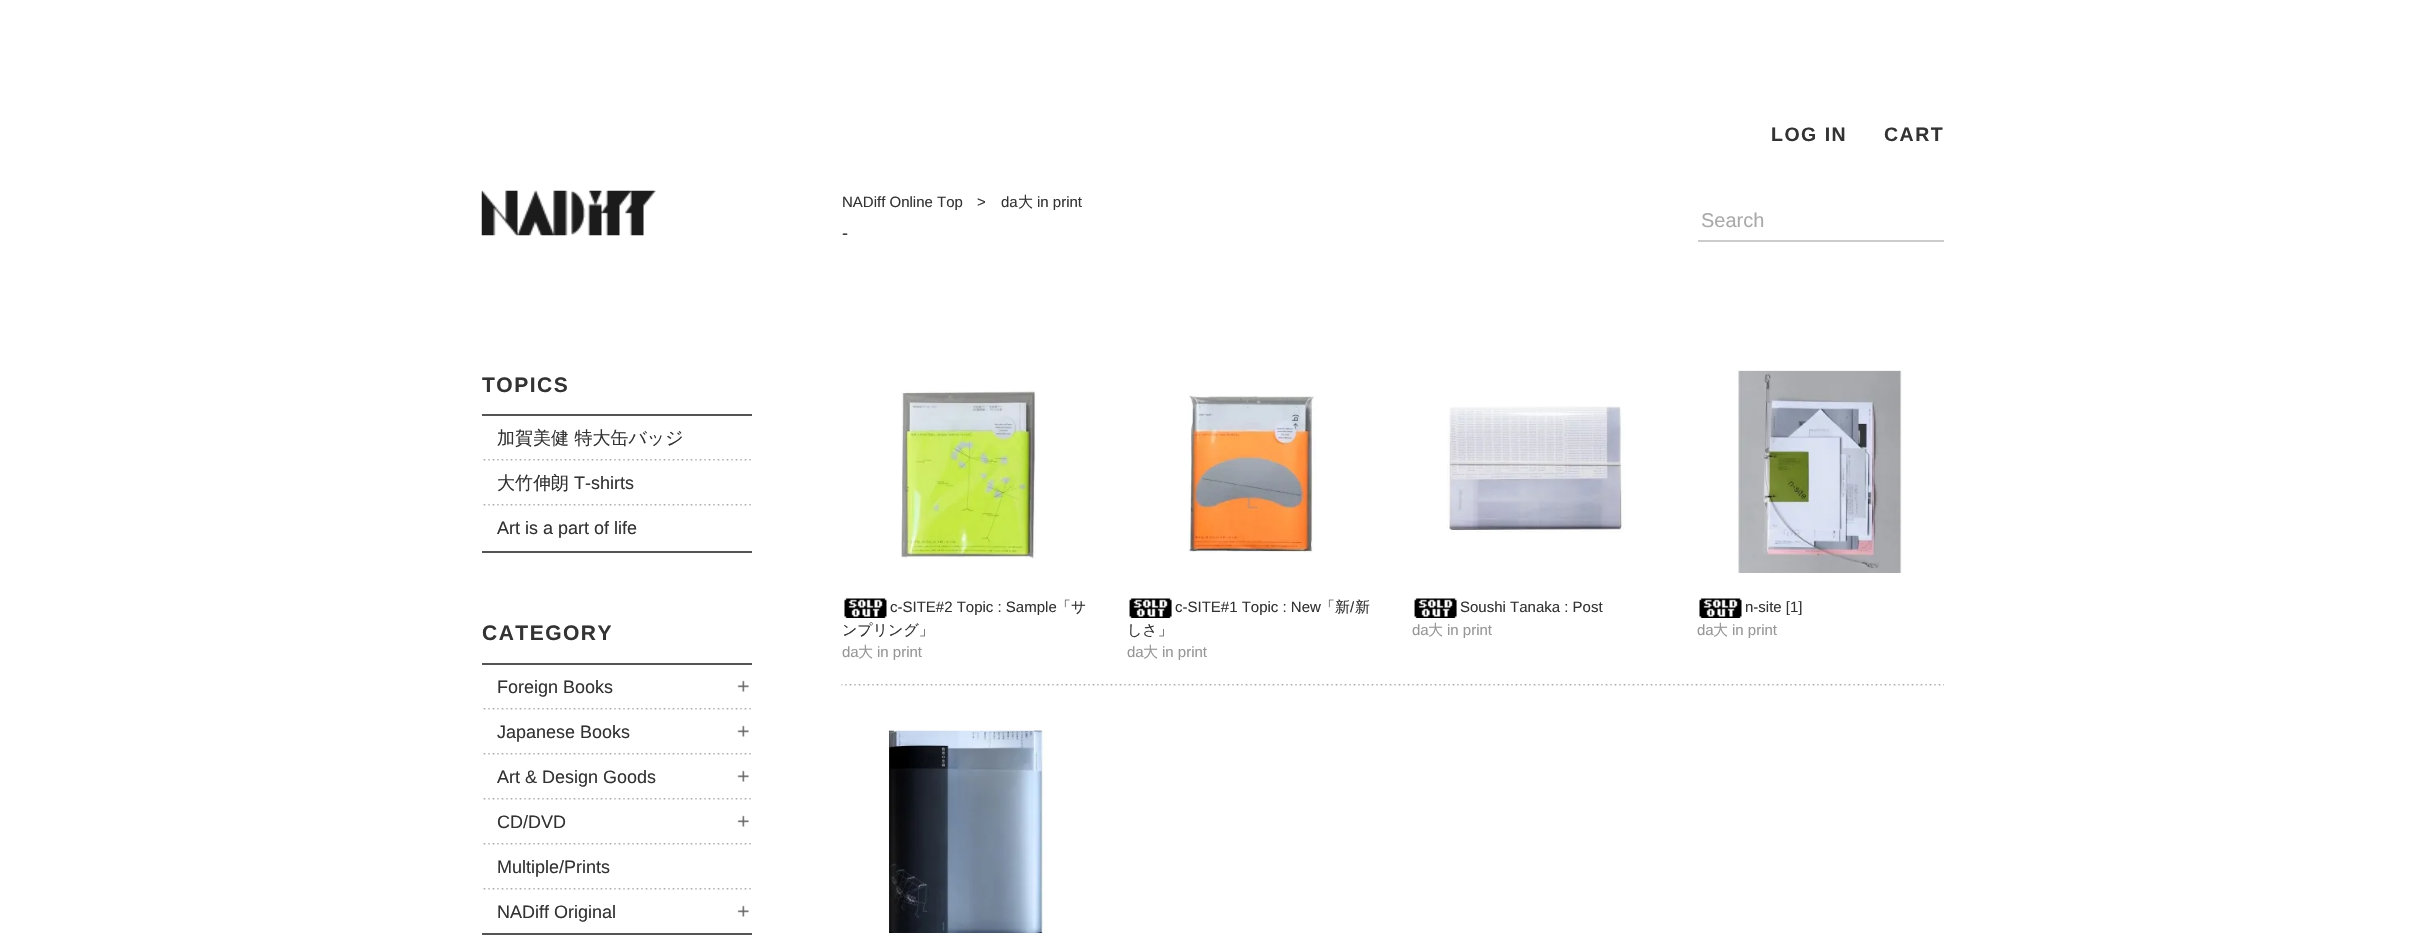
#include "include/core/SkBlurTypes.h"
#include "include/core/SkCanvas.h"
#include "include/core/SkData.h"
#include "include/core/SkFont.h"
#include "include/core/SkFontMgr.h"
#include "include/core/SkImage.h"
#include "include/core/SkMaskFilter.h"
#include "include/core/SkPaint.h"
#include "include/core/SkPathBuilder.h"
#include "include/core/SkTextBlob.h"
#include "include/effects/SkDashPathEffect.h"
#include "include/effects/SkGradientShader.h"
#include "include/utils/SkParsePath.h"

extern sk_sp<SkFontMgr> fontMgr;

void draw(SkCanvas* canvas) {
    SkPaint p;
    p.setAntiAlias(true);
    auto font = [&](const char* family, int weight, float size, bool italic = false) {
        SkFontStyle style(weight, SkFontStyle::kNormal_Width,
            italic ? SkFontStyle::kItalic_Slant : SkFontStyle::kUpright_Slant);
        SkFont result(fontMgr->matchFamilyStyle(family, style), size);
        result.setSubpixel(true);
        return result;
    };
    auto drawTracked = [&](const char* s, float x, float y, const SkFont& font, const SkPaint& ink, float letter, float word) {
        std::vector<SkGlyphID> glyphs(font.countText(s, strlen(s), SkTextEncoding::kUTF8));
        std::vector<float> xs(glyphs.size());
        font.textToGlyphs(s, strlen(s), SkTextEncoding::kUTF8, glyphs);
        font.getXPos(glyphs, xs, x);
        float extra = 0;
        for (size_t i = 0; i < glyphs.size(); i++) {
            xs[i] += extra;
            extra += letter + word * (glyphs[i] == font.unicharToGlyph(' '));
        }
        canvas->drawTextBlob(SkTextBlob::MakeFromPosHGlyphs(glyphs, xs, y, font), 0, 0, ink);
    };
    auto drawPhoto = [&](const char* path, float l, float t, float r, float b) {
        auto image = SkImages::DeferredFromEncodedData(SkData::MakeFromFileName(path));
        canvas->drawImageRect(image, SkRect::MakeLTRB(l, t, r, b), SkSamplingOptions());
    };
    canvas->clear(0xFFFFFFFF);
    drawPhoto("media/1.png", 481, 190, 656, 236);
    auto font1 = font("Liberation Sans", 700, 21);
    p.setColor(0xFF333333);
    drawTracked("TOPICS", 482, 392, font1, p, 1.5f, 0);
    p.setColor(0xFF555555);
    canvas->drawRect(SkRect::MakeLTRB(482, 414, 752, 416), p);
    canvas->drawRect(SkRect::MakeLTRB(482, 551, 752, 553), p);
    drawPhoto("media/2.png", 483, 459, 751, 461);
    auto font2 = font("WenQuanYi Zen Hei", 500, 18);
    p.setColor(0xFF333333);
    canvas->drawString("加賀美健 特大缶バッジ", 497, 444, font2, p);
    drawPhoto("media/2.png", 483, 504, 751, 506);
    canvas->drawString("大竹伸朗", 497, 489, font2, p);
    auto font3 = font("Liberation Sans", 400, 18);
    canvas->drawString("T-shirts", 574, 489, font3, p);
    canvas->drawString("Art is a part of life", 497, 534, font3, p);
    drawTracked("CATEGORY", 482, 640, font1, p, 1.5f, 0);
    p.setColor(0xFF555555);
    canvas->drawRect(SkRect::MakeLTRB(482, 663, 752, 665), p);
    canvas->drawRect(SkRect::MakeLTRB(482, 933, 752, 935), p);
    drawPhoto("media/2.png", 483, 708, 751, 710);
    drawPhoto("media/3.png", 737, 680, 749, 692);
    p.setColor(0xFF333333);
    canvas->drawString("Foreign Books", 497, 693, font3, p);
    drawPhoto("media/2.png", 483, 753, 751, 755);
    drawPhoto("media/3.png", 737, 725, 749, 737);
    canvas->drawString("Japanese Books", 497, 738, font3, p);
    drawPhoto("media/2.png", 483, 798, 751, 800);
    drawPhoto("media/3.png", 737, 770, 749, 782);
    canvas->drawString("Art & Design Goods", 497, 783, font3, p);
    drawPhoto("media/2.png", 483, 843, 751, 845);
    drawPhoto("media/3.png", 737, 815, 749, 827);
    canvas->drawString("CD/DVD", 497, 828, font3, p);
    drawPhoto("media/2.png", 483, 888, 751, 890);
    canvas->drawString("Multiple/Prints", 497, 873, font3, p);
    drawPhoto("media/3.png", 737, 905, 749, 917);
    canvas->drawString("NADiff Original", 497, 918, font3, p);
    auto font4 = font("Liberation Sans", 700, 19.5f);
    drawTracked("LOG IN", 1771, 141, font4, p, 1.5f, 0);
    drawTracked("CART", 1884, 141, font4, p, 1.5f, 0);
    auto font5 = font("Liberation Sans", 400, 15);
    {
        const struct { const char* s; float x, y; } items[] = {
            {"NADiff Online Top", 842, 207},
            {">", 977, 207},
            {"da", 1001, 207},
        };
        for (auto [s, x, y] : items) {
            canvas->drawString(s, x, y, font5, p);
        }
    }
    auto font6 = font("WenQuanYi Zen Hei", 500, 15);
    canvas->drawString("大", 1018, 207, font6, p);
    canvas->drawString("in print", 1037, 207, font5, p);
    p.setColor(0xFFCCCCCC);
    canvas->drawRect(SkRect::MakeLTRB(1698, 240, 1944, 242), p);
    auto font7 = font("Liberation Sans", 400, 20);
    p.setColor(0xFFAAAAAA);
    canvas->drawString("Search", 1701, 227, font7, p);
    p.setColor(0xFF333333);
    drawTracked("-", 842, 239, font3, p, 3, 0);
    drawPhoto("media/4.png", 901, 390, 1036, 559);
    drawPhoto("media/5.png", 844, 598, 887, 618);
    canvas->drawString("c-SITE#2 Topic : Sample", 890, 612, font5, p);
    canvas->drawString("「サ", 1056, 612, font6, p);
    canvas->drawString("ンプリング」", 842, 635, font6, p);
    p.setColor(0xFF969696);
    canvas->drawString("da", 842, 657, font5, p);
    canvas->drawString("大", 858, 657, font6, p);
    canvas->drawString("in print", 877, 657, font5, p);
    drawPhoto("media/6.png", 1188, 395, 1317, 553);
    drawPhoto("media/7.png", 1129, 598, 1172, 618);
    p.setColor(0xFF333333);
    canvas->drawString("c-SITE#1 Topic : New", 1175, 612, font5, p);
    canvas->drawString("「新", 1320, 612, font6, p);
    canvas->drawString("/", 1350, 612, font5, p);
    canvas->drawString("新", 1355, 612, font6, p);
    canvas->drawString("しさ」", 1127, 635, font6, p);
    p.setColor(0xFF969696);
    canvas->drawString("da", 1127, 657, font5, p);
    canvas->drawString("大", 1143, 657, font6, p);
    canvas->drawString("in print", 1162, 657, font5, p);
    drawPhoto("media/8.png", 1447, 406, 1625, 533);
    drawPhoto("media/7.png", 1414, 598, 1457, 618);
    p.setColor(0xFF333333);
    canvas->drawString("Soushi Tanaka : Post", 1460, 612, font5, p);
    p.setColor(0xFF969696);
    canvas->drawString("da", 1412, 635, font5, p);
    canvas->drawString("大", 1428, 635, font6, p);
    canvas->drawString("in print", 1447, 635, font5, p);
    drawPhoto("media/9.png", 1738, 370, 1902, 573);
    drawPhoto("media/5.png", 1699, 598, 1742, 618);
    p.setColor(0xFF333333);
    canvas->drawString("n-site [1]", 1745, 612, font5, p);
    p.setColor(0xFF969696);
    canvas->drawString("da", 1697, 635, font5, p);
    canvas->drawString("大", 1713, 635, font6, p);
    canvas->drawString("in print", 1732, 635, font5, p);
    drawPhoto("media/10.png", 841, 684, 1944, 686);
    drawPhoto("media/11.png", 887, 730, 1047, 933);
}
